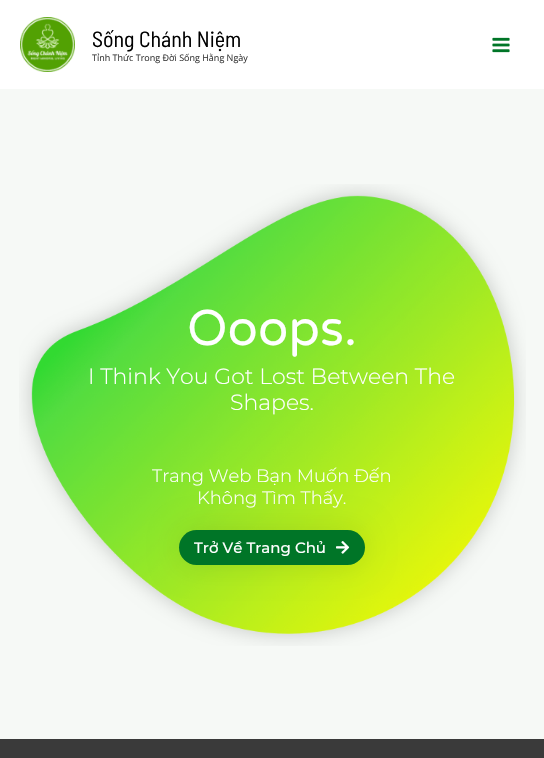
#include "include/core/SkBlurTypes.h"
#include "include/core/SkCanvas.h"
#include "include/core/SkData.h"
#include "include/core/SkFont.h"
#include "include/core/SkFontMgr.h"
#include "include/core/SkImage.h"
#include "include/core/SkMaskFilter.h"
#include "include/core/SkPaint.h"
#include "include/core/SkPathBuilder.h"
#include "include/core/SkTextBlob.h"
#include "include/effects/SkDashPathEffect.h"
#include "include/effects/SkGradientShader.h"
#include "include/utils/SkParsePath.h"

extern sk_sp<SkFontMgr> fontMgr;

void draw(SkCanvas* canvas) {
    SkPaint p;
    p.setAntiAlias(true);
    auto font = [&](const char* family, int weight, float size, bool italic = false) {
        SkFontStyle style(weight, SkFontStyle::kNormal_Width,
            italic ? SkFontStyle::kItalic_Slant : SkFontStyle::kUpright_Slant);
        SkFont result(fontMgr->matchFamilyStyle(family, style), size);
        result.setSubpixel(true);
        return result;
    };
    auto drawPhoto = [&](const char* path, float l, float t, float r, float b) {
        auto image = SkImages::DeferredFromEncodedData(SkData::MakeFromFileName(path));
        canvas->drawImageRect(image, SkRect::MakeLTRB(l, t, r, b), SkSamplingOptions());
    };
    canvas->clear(0xFFF6F9F6);
    p.setColor(0xFFFFFFFF);
    canvas->drawRect(SkRect::MakeLTRB(0, 0, 544, 89), p);
    drawPhoto("media/1.png", 20, 17, 75, 72);
    auto font1 = font("Barlow Semi Condensed", 400, 22);
    p.setColor(0xFF000000);
    canvas->drawString("Sống Chánh Niệm", 92, 47, font1, p);
    auto font2 = font("Open Sans", 400, 9);
    p.setColor(0xFF3A3A3A);
    canvas->drawString("Tỉnh Thức Trong Đời Sống Hằng Ngày", 92, 61, font2, p);
    drawPhoto("media/2.png", 492, 37, 510, 53);
    drawPhoto("media/3.png", 19, 184, 526, 646);
    auto font3 = font("Varela Round", 400, 50);
    p.setColor(0xFFFFFFFF);
    canvas->drawString("Ooops.", 187, 345, font3, p);
    auto font4 = font("Montserrat", 300, 22);
    canvas->drawString("I Think You Got Lost Between The", 88, 384, font4, p);
    canvas->drawString("Shapes.", 230, 410, font4, p);
    auto font5 = font("Montserrat", 300, 18);
    canvas->drawString("Trang Web Bạn Muốn Đến", 152, 482, font5, p);
    canvas->drawString("Không Tìm Thấy.", 197, 504, font5, p);
    p.setColor(0x1A000000);
    p.setMaskFilter(SkMaskFilter::MakeBlur(kNormal_SkBlurStyle, 15));
    canvas->drawRoundRect(SkRect::MakeLTRB(179, 530, 365, 565), 17.5f, 17.5f, p);
    p.setMaskFilter(nullptr);
    p.setColor(0xFF007527);
    canvas->drawRoundRect(SkRect::MakeLTRB(179, 530, 365, 565), 17.5f, 17.5f, p);
    auto font6 = font("Montserrat", 500, 15);
    p.setColor(0xFFFFFFFF);
    canvas->drawString("Trở Về Trang Chủ", 194, 553, font6, p);
    drawPhoto("media/4.png", 336, 541, 350, 554);
    p.setColor(0xFF3A3A3A);
    canvas->drawRect(SkRect::MakeLTRB(0, 739, 544, 758), p);
}
